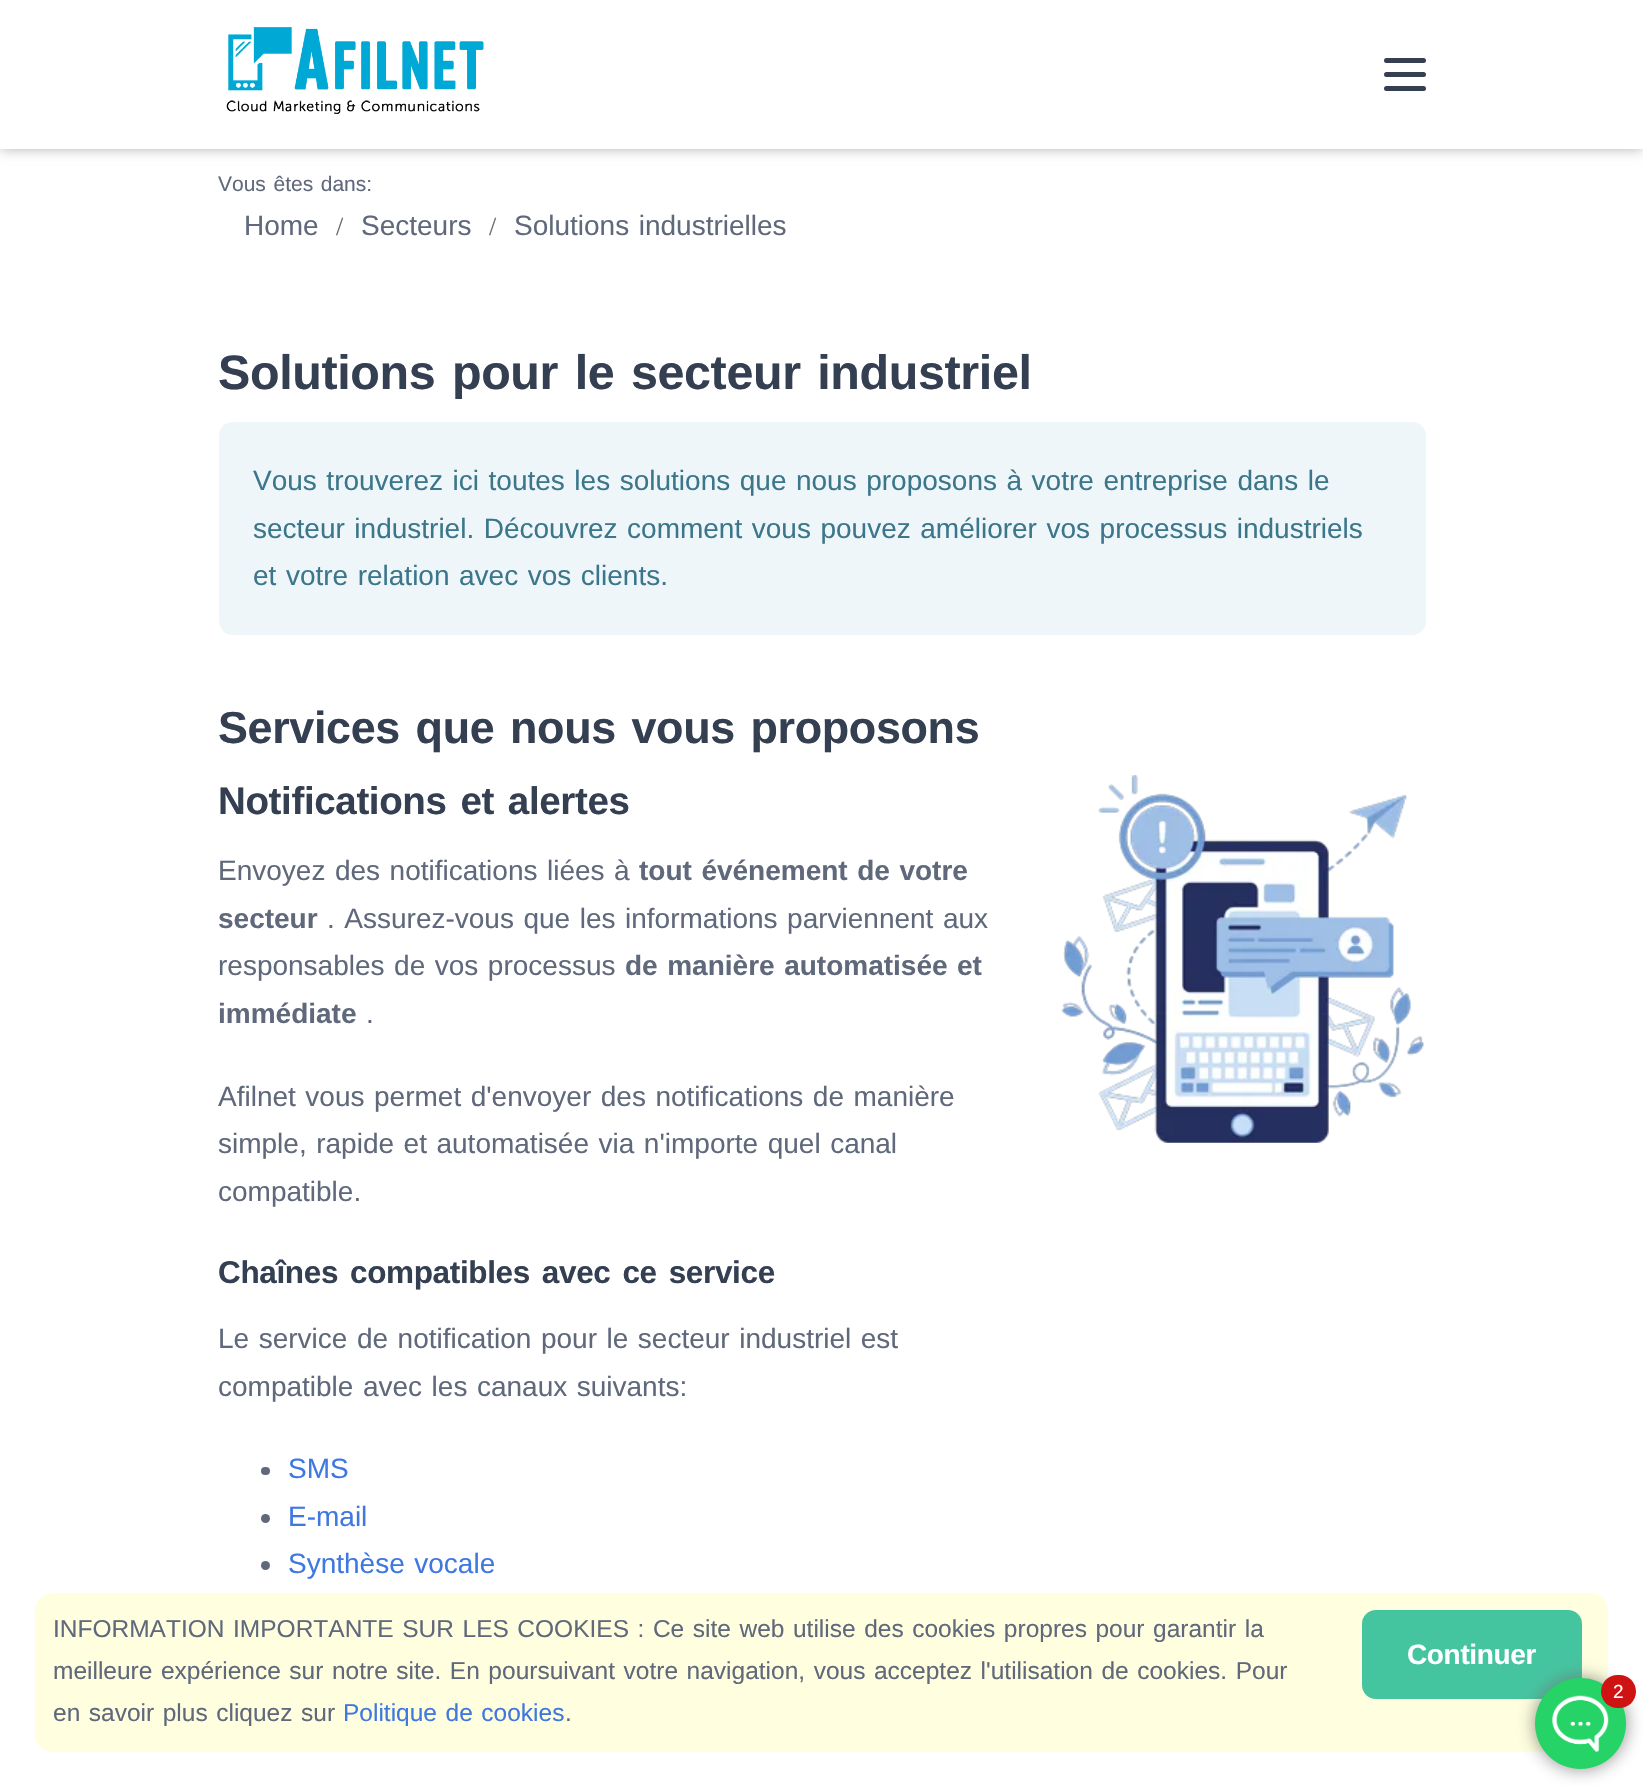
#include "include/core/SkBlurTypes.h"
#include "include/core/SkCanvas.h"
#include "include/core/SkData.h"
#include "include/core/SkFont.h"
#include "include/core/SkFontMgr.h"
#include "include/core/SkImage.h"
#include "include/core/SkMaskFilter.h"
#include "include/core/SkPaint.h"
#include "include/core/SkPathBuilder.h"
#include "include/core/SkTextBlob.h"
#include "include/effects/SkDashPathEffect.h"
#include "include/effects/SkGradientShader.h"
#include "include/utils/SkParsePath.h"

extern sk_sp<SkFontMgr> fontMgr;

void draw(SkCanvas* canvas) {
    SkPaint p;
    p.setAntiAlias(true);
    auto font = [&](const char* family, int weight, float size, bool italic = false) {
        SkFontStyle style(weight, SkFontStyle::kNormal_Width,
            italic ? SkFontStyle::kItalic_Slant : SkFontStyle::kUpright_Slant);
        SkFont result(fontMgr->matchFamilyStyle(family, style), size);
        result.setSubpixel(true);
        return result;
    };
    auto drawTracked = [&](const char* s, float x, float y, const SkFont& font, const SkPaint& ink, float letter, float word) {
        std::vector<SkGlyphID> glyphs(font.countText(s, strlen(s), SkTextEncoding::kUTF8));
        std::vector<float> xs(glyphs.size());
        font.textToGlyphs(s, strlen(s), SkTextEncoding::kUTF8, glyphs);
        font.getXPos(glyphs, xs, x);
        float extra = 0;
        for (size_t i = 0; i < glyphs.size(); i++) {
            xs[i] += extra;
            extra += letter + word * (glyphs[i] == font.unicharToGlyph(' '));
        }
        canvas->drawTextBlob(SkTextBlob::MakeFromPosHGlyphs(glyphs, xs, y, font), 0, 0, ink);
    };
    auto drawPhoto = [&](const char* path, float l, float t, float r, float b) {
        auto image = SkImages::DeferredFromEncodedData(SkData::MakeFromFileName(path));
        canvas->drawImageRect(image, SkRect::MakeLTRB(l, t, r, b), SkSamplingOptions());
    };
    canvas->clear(0xFFFFFFFF);
    p.setColor(0x4D000000);
    p.setMaskFilter(SkMaskFilter::MakeBlur(kNormal_SkBlurStyle, 6));
    canvas->drawRect(SkRect::MakeLTRB(0, 0, 1643, 149), p);
    p.setMaskFilter(nullptr);
    p.setColor(0xFFFFFFFF);
    canvas->drawRect(SkRect::MakeLTRB(0, 0, 1643, 149), p);
    drawPhoto("media/1.png", 226, 27, 484, 114);
    p.setColor(0xFF343F52);
    canvas->drawRoundRect(SkRect::MakeLTRB(1384, 58, 1426, 63), 2.5f, 2.5f, p);
    canvas->drawRoundRect(SkRect::MakeLTRB(1384, 72, 1426, 77), 2.5f, 2.5f, p);
    canvas->drawRoundRect(SkRect::MakeLTRB(1384, 86, 1426, 91), 2.5f, 2.5f, p);
    auto font1 = font("Liberation Sans", 400, 21);
    p.setColor(0xFF60697B);
    drawTracked("Vous êtes dans:", 218, 191, font1, p, 0, 1.75f);
    auto font2 = font("Liberation Sans", 400, 28);
    canvas->drawString("Home", 244, 235, font2, p);
    auto font3 = font("Liberation Serif", 400, 26);
    p.setColor(0xFF636C72);
    canvas->drawString("/", 336, 235, font3, p);
    p.setColor(0xFF60697B);
    canvas->drawString("Secteurs", 361, 235, font2, p);
    p.setColor(0xFF636C72);
    canvas->drawString("/", 489, 235, font3, p);
    p.setColor(0xFF60697B);
    drawTracked("Solutions industrielles", 514, 235, font2, p, 0, 1.75f);
    auto font4 = font("Liberation Sans", 700, 48.4f);
    p.setColor(0xFF343F52);
    drawTracked("Solutions pour le secteur industriel", 218, 389, font4, p, -0.35f, 3.5f);
    p.setColor(0xFFEEF6F9);
    canvas->drawRoundRect(SkRect::MakeLTRB(219, 422, 1426, 635), 14, 14, p);
    p.setColor(0xFF3B768B);
    {
        const struct { const char* s; float x, y; } items[] = {
            {"Vous trouverez ici toutes les solutions que nous proposons à votre entreprise dans le", 253, 490},
            {"secteur industriel. Découvrez comment vous pouvez améliorer vos processus industriels", 253, 538},
            {"et votre relation avec vos clients.", 253, 585},
        };
        for (auto [s, x, y] : items) {
            drawTracked(s, x, y, font2, p, 0, 1.75f);
        }
    }
    auto font5 = font("Liberation Sans", 700, 44.9f);
    p.setColor(0xFF343F52);
    drawTracked("Services que nous vous proposons", 218, 743, font5, p, -0.35f, 3.5f);
    auto font6 = font("Liberation Sans", 700, 38.5f);
    drawTracked("Notifications et alertes", 218, 814, font6, p, -0.35f, 3.5f);
    p.setColor(0xFF60697B);
    drawTracked("Envoyez des notifications liées à", 218, 880, font2, p, 0, 1.75f);
    auto font7 = font("Liberation Sans", 700, 28);
    drawTracked("tout événement de votre", 639, 880, font7, p, 0, 1.75f);
    canvas->drawString("secteur", 218, 928, font7, p);
    drawTracked(". Assurez-vous que les informations parviennent aux", 327, 928, font2, p, 0, 1.75f);
    drawTracked("responsables de vos processus", 218, 975, font2, p, 0, 1.75f);
    drawTracked("de manière automatisée et", 625, 975, font7, p, 0, 1.75f);
    canvas->drawString("immédiate", 218, 1023, font7, p);
    canvas->drawString(".", 366, 1023, font2, p);
    drawTracked("Afilnet vous permet d'envoyer des notifications de manière", 218, 1106, font2, p, 0, 1.75f);
    drawTracked("simple, rapide et automatisée via n'importe quel canal", 218, 1153, font2, p, 0, 1.75f);
    canvas->drawString("compatible.", 218, 1201, font2, p);
    auto font8 = font("Liberation Sans", 700, 31.5f);
    p.setColor(0xFF343F52);
    drawTracked("Chaînes compatibles avec ce service", 218, 1283, font8, p, -0.35f, 3.5f);
    p.setColor(0xFF60697B);
    drawTracked("Le service de notification pour le secteur industriel est", 218, 1348, font2, p, 0, 1.75f);
    drawTracked("compatible avec les canaux suivants:", 218, 1396, font2, p, 0, 1.75f);
    canvas->drawRoundRect(SkRect::MakeLTRB(261, 1467, 270, 1475), 4, 4, p);
    p.setColor(0xFF3F78E0);
    canvas->drawString("SMS", 288, 1478, font2, p);
    p.setColor(0xFF60697B);
    canvas->drawCircle(265.5f, 1518.5f, 4.5f, p);
    p.setColor(0xFF3F78E0);
    canvas->drawString("E-mail", 288, 1526, font2, p);
    p.setColor(0xFF60697B);
    canvas->drawCircle(265.5f, 1565.5f, 4.5f, p);
    p.setColor(0xFF3F78E0);
    drawTracked("Synthèse vocale", 288, 1573, font2, p, 0, 1.75f);
    drawPhoto("media/2.png", 1061, 775, 1424, 1143);
    p.setColor(0xFFFFFFDF);
    canvas->drawRoundRect(SkRect::MakeLTRB(35, 1593, 1608, 1752), 18, 18, p);
    auto font9 = font("Liberation Sans", 400, 24.5f);
    p.setColor(0xFF60697B);
    drawTracked("INFORMATION IMPORTANTE SUR LES COOKIES : Ce site web utilise des cookies propres pour garantir la", 53, 1637, font9, p, 0, 1.75f);
    p.setColor(0xFF45C4A0);
    canvas->drawRoundRect(SkRect::MakeLTRB(1364, 1612, 1580, 1697), 12, 12, p);
    p.setStyle(SkPaint::kStroke_Style);
    p.setStrokeWidth(4);
    canvas->drawRoundRect(SkRect::MakeLTRB(1364, 1612, 1580, 1697), 12, 12, p);
    p.setStyle(SkPaint::kFill_Style);
    p.setColor(0xFFFFFFFF);
    drawTracked("Continuer", 1407, 1664, font7, p, -0.35f, 0);
    p.setColor(0xFF60697B);
    drawTracked("meilleure expérience sur notre site. En poursuivant votre navigation, vous acceptez l'utilisation de cookies. Pour", 53, 1679, font9, p, 0, 1.75f);
    drawTracked("en savoir plus cliquez sur", 53, 1721, font9, p, 0, 1.75f);
    p.setColor(0xFF3F78E0);
    drawTracked("Politique de cookies", 343, 1721, font9, p, 0, 1.75f);
    p.setColor(0xFF60697B);
    canvas->drawString(".", 565, 1721, font9, p);
    p.setColor(0xCC717171);
    p.setMaskFilter(SkMaskFilter::MakeBlur(kNormal_SkBlurStyle, 9));
    canvas->drawRoundRect(SkRect::MakeLTRB(1535, 1678, 1626, 1769), 45.5f, 45.5f, p);
    p.setMaskFilter(nullptr);
    p.setColor(0xFF25D366);
    canvas->drawCircle(1580.5f, 1723.5f, 45.5f, p);
    drawPhoto("media/3.png", 1552, 1695, 1609, 1752);
    p.setColor(0xFFCF1212);
    canvas->drawRoundRect(SkRect::MakeLTRB(1601, 1675, 1636, 1708), 16.5f, 16.5f, p);
    auto font10 = font("Liberation Sans", 400, 19);
    p.setColor(0xFFFFFFFF);
    canvas->drawString("2", 1613, 1698, font10, p);
}
